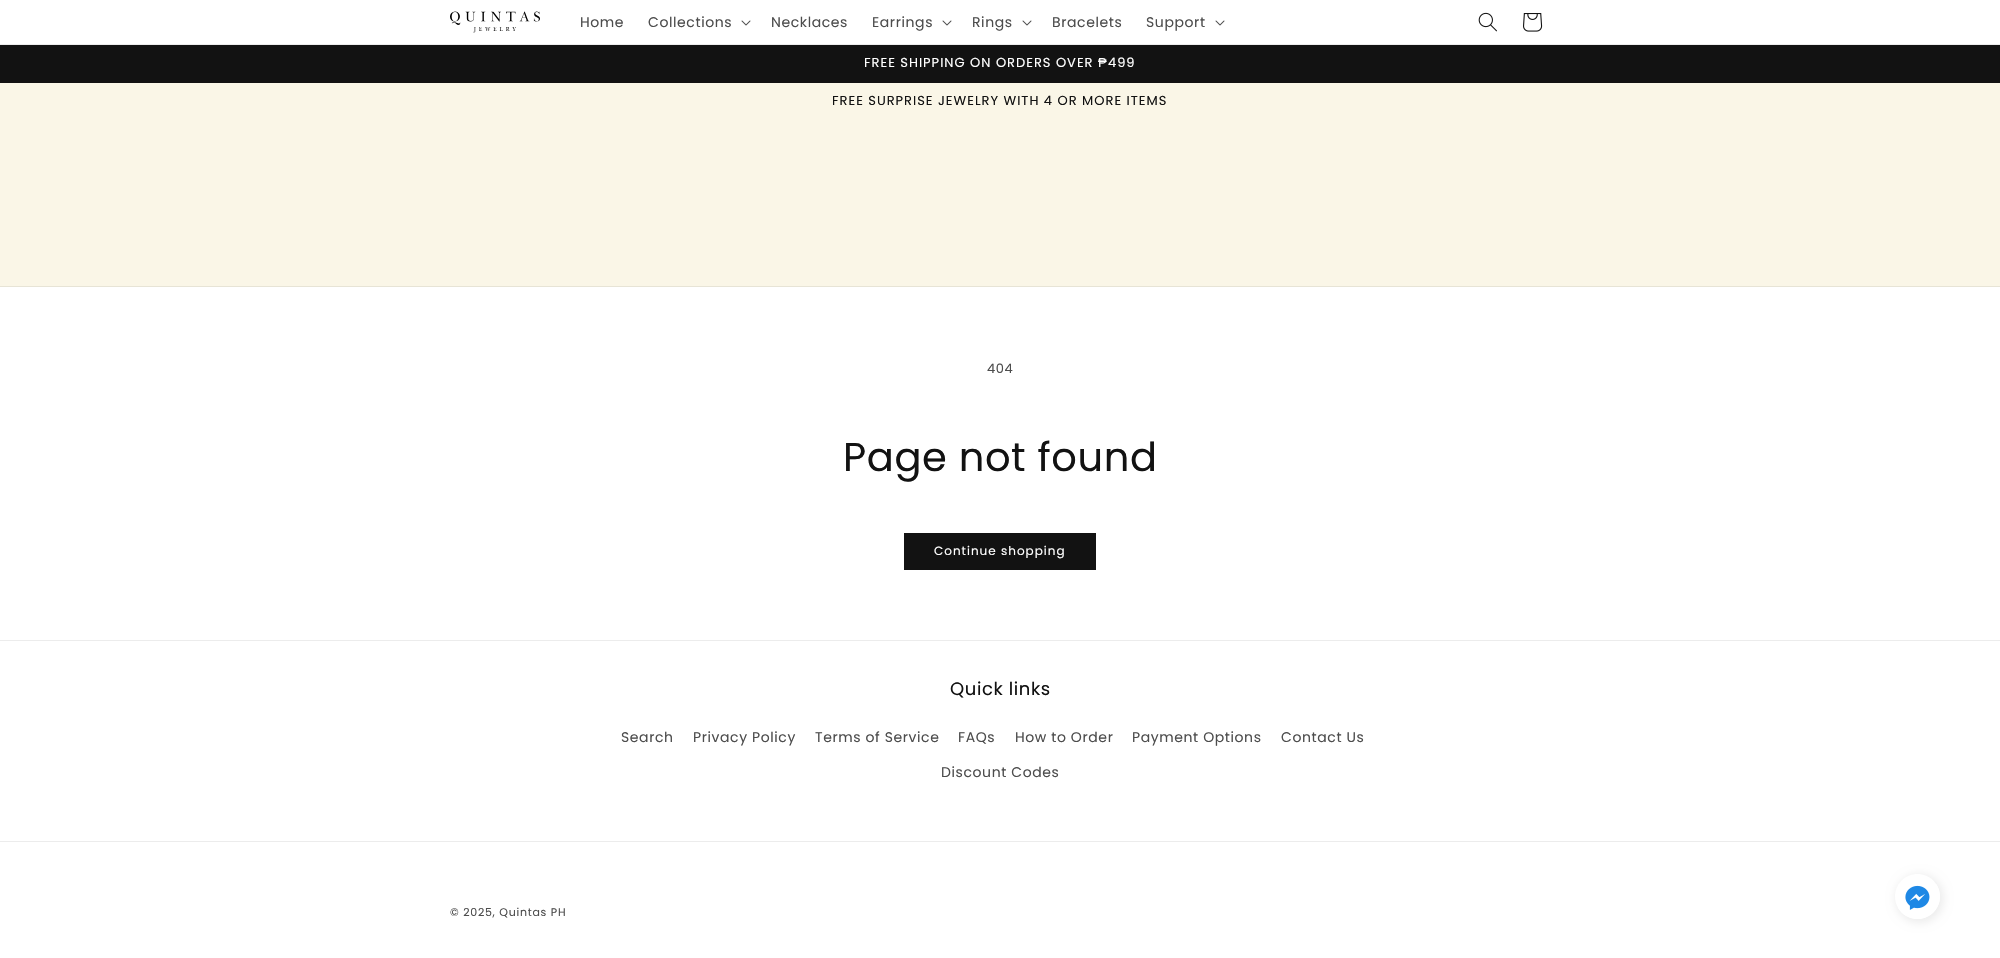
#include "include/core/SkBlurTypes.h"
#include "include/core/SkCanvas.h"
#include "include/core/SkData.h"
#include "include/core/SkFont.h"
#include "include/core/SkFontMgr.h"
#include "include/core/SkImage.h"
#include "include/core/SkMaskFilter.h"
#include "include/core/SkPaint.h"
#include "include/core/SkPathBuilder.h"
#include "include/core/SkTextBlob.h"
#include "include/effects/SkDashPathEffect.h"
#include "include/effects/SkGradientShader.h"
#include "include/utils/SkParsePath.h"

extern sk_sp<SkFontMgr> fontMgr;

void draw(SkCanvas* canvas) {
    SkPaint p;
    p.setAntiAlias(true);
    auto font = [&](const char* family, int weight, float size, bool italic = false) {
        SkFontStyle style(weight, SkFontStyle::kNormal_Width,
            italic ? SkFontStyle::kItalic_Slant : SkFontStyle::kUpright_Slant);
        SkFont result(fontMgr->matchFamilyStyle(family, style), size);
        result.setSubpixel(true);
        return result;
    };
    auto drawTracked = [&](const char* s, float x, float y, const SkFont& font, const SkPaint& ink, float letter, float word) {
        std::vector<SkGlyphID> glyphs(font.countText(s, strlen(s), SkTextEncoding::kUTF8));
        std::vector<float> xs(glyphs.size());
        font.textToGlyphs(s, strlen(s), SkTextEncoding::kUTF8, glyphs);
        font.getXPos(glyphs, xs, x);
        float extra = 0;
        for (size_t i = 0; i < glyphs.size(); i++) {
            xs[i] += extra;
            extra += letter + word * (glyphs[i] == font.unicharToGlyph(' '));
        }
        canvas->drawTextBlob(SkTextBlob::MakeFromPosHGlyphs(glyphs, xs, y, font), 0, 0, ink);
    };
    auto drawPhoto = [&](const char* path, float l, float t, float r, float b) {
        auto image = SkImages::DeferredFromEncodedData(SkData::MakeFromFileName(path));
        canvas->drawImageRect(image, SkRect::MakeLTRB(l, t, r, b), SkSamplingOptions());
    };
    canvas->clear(0xFFFFFFFF);
    p.setColor(0xFFECECEC);
    canvas->drawRect(SkRect::MakeLTRB(0, 44, 2000, 45), p);
    drawPhoto("media/1.png", 450, 11, 540, 33);
    auto font1 = font("Poppins", 400, 14);
    p.setColor(0xFF4D4D4D);
    drawTracked("Home", 580, 27, font1, p, 0.6f, 0);
    drawTracked("Collections", 648, 27, font1, p, 0.6f, 0);
    drawPhoto("media/2.png", 741, 20, 751, 26);
    drawTracked("Necklaces", 771, 27, font1, p, 0.6f, 0);
    drawTracked("Earrings", 872, 27, font1, p, 0.6f, 0);
    drawPhoto("media/2.png", 942, 20, 952, 26);
    drawTracked("Rings", 972, 27, font1, p, 0.6f, 0);
    drawPhoto("media/2.png", 1022, 20, 1032, 26);
    drawTracked("Bracelets", 1052, 27, font1, p, 0.6f, 0);
    drawTracked("Support", 1146, 27, font1, p, 0.6f, 0);
    drawPhoto("media/2.png", 1215, 20, 1225, 26);
    drawPhoto("media/3.png", 1478, 12, 1497, 32);
    drawPhoto("media/4.png", 1523, 13, 1543, 32);
    p.setColor(0xFF121212);
    canvas->drawRect(SkRect::MakeLTRB(0, 45, 2000, 83), p);
    auto font2 = font("Poppins", 400, 13);
    p.setColor(0xFFFFFFFF);
    drawTracked("FREE SHIPPING ON ORDERS OVER", 864, 67, font2, p, 1, 0);
    auto font3 = font("Liberation Sans", 400, 13);
    drawTracked("₱", 1098, 67, font3, p, 1, 0);
    drawTracked("499", 1108, 67, font2, p, 1, 0);
    p.setColor(0xFFFAF6E7);
    canvas->drawRect(SkRect::MakeLTRB(0, 83, 2000, 286), p);
    p.setColor(0xFFE7E4D6);
    canvas->drawRect(SkRect::MakeLTRB(0, 286, 2000, 287), p);
    p.setColor(0xFF121212);
    drawTracked("FREE SURPRISE JEWELRY WITH 4 OR MORE ITEMS", 832, 105, font2, p, 1, 0);
    p.setColor(0xFF4D4D4D);
    drawTracked("404", 987, 373, font2, p, 0.6f, 0);
    auto font4 = font("Poppins", 400, 40);
    p.setColor(0xFF121212);
    drawTracked("Page not found", 843, 471, font4, p, 0.6f, 0);
    canvas->drawRect(SkRect::MakeLTRB(904, 533, 1096, 570), p);
    auto font5 = font("Poppins", 400, 12);
    p.setColor(0xFFFFFFFF);
    drawTracked("Continue shopping", 934, 555, font5, p, 1, 0);
    p.setColor(0xFFECECEC);
    canvas->drawRect(SkRect::MakeLTRB(0, 640, 2000, 641), p);
    auto font6 = font("Poppins", 400, 18);
    p.setColor(0xFF121212);
    drawTracked("Quick links", 950, 695, font6, p, 0.6f, 0);
    p.setColor(0xFF4D4D4D);
    {
        const struct { const char* s; float x, y; } items[] = {
            {"Search", 621, 742},
            {"Privacy Policy", 693, 742},
            {"Terms of Service", 815, 742},
            {"FAQs", 958, 742},
            {"How to Order", 1015, 742},
            {"Payment Options", 1132, 742},
            {"Contact Us", 1281, 742},
            {"Discount Codes", 941, 777},
        };
        for (auto [s, x, y] : items) {
            drawTracked(s, x, y, font1, p, 0.6f, 0);
        }
    }
    p.setColor(0xFFECECEC);
    canvas->drawRect(SkRect::MakeLTRB(0, 841, 2000, 842), p);
    auto font7 = font("Poppins", 400, 11);
    p.setColor(0xFF4D4D4D);
    drawTracked("© 2025, Quintas PH", 450, 916, font7, p, 0.75f, 0);
    canvas->save();
    canvas->clipPath(SkPathBuilder(SkPathFillType::kEvenOdd).moveTo(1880, 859).lineTo(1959, 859).lineTo(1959, 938).lineTo(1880, 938).close().moveTo(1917.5f, 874).cubicTo(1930, 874, 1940, 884, 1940, 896.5f).cubicTo(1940, 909, 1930, 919, 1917.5f, 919).cubicTo(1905, 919, 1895, 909, 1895, 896.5f).cubicTo(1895, 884, 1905, 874, 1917.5f, 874).close().detach(), true);
    p.setColor(0x12000000);
    p.setMaskFilter(SkMaskFilter::MakeBlur(kNormal_SkBlurStyle, 4.5f));
    canvas->drawRoundRect(SkRect::MakeLTRB(1895, 874, 1944, 923), 24.5f, 24.5f, p);
    p.setMaskFilter(nullptr);
    canvas->restore();
    drawPhoto("media/5.png", 1898, 884, 1940, 919);
}
